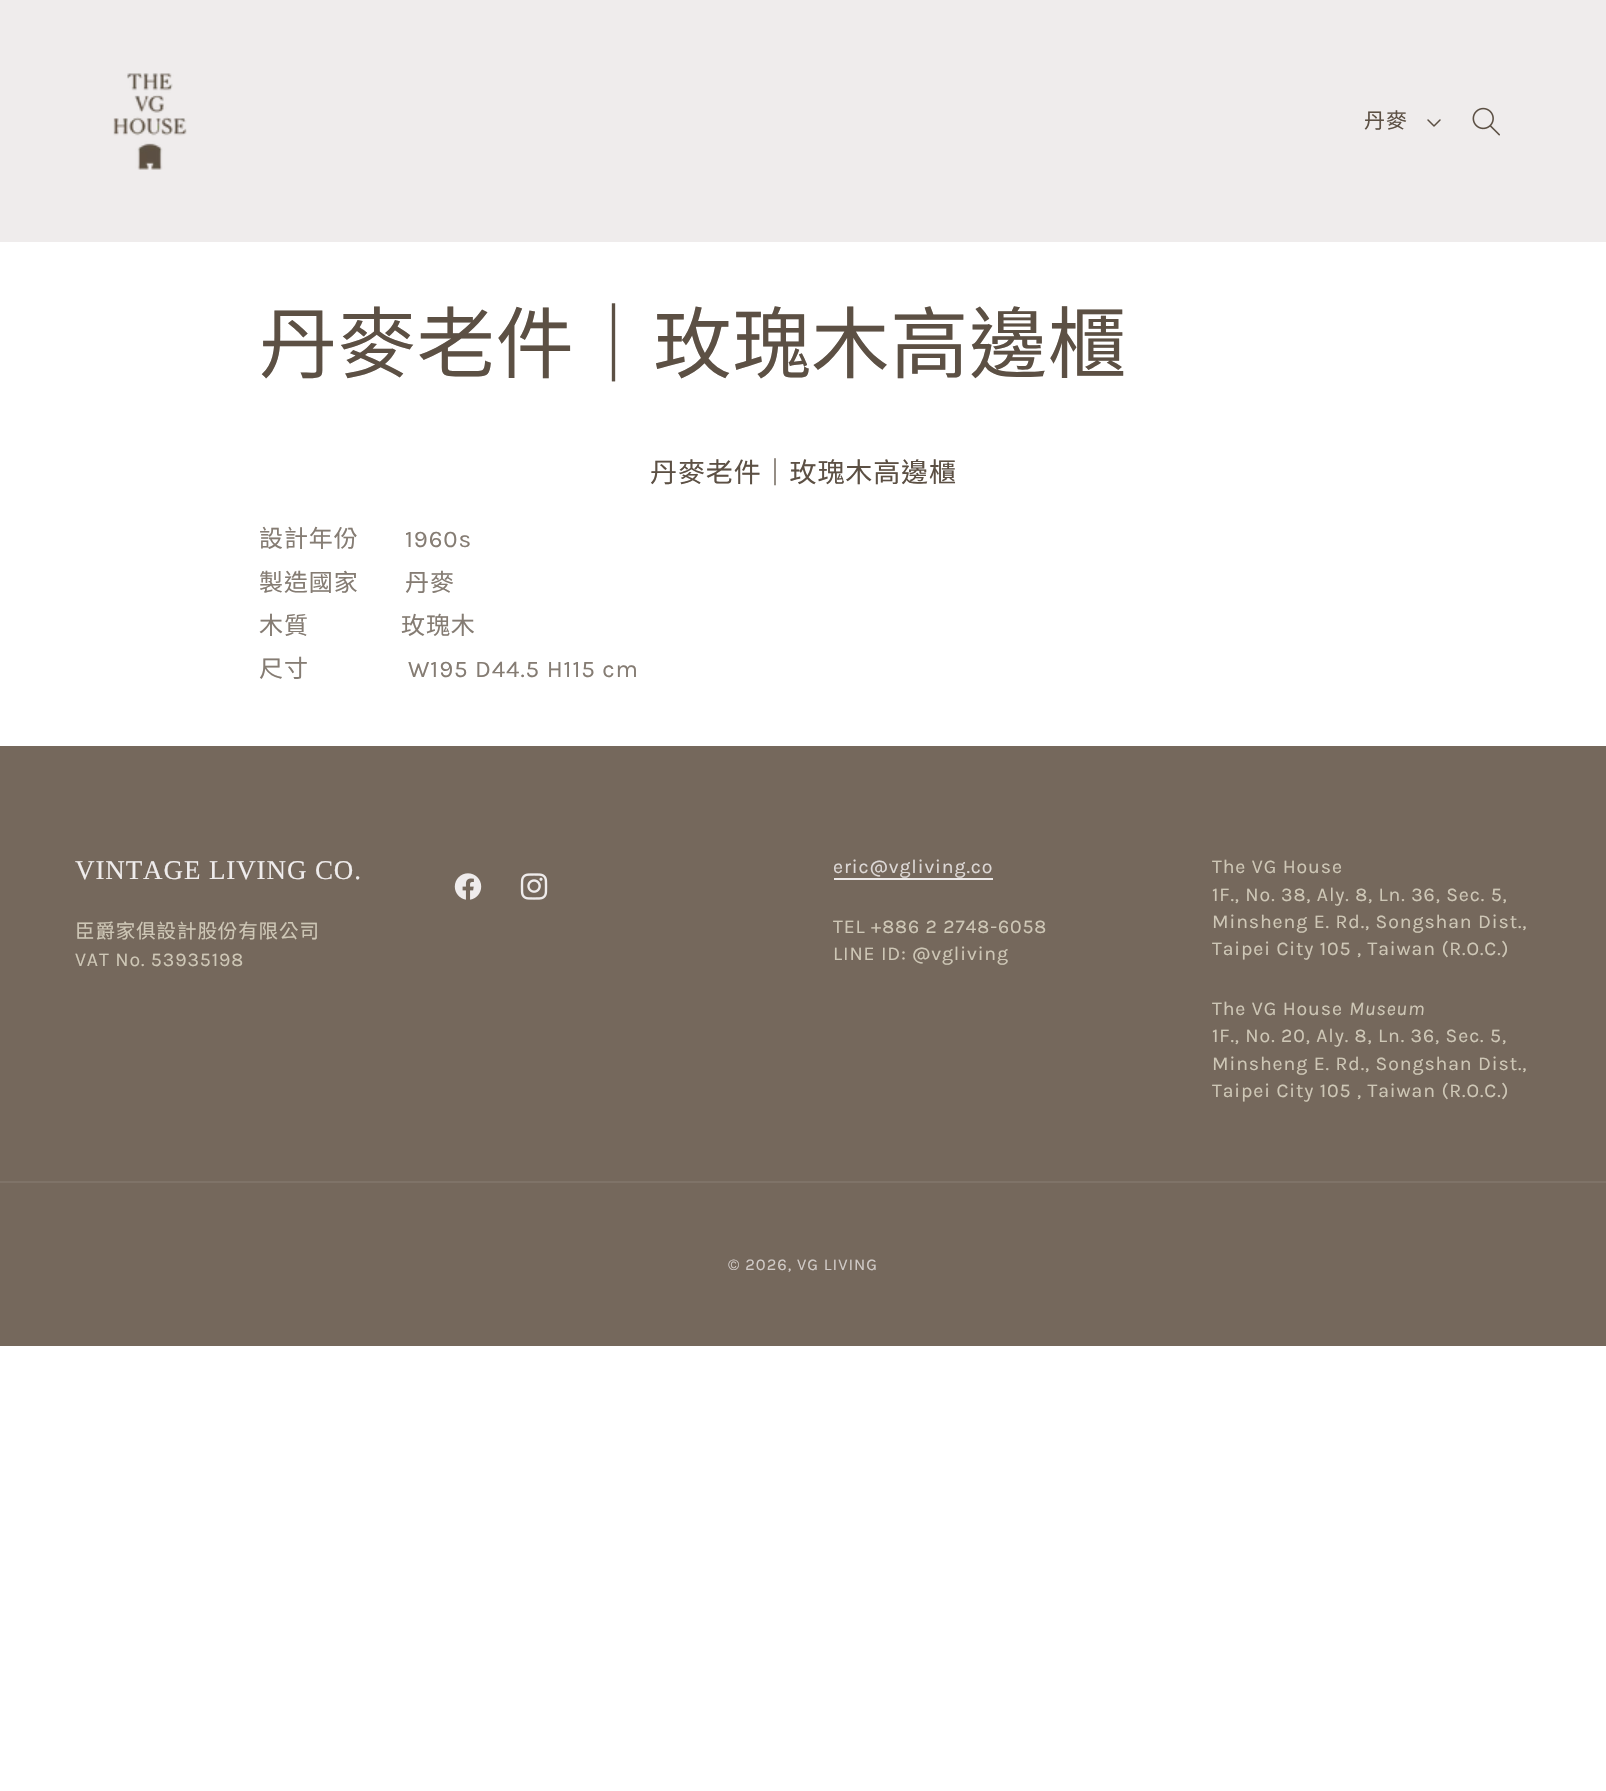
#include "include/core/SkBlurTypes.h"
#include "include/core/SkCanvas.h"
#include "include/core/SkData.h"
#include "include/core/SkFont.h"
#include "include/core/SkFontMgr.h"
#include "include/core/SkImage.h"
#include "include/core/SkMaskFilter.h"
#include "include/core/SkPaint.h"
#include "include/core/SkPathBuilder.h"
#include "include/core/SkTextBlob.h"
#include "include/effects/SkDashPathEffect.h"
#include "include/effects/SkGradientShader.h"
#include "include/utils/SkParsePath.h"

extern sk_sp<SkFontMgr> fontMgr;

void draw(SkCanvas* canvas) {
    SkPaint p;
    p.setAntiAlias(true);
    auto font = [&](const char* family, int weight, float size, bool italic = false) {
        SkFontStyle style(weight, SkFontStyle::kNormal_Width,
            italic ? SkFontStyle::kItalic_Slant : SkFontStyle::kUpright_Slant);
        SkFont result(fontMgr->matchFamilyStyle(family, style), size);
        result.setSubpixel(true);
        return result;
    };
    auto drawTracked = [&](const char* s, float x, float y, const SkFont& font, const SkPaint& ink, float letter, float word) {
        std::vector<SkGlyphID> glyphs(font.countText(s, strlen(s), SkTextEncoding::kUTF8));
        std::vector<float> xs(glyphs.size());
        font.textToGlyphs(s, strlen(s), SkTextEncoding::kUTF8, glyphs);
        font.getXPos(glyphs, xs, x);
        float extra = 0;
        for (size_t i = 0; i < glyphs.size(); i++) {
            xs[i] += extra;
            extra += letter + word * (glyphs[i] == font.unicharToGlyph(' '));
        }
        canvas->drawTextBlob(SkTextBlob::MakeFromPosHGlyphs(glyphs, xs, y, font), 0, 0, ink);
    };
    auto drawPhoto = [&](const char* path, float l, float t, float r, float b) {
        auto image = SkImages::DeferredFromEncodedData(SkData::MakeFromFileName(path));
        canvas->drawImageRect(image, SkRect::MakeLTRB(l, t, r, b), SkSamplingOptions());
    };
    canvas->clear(0xFFFFFFFF);
    p.setColor(0xFFEFECEC);
    canvas->drawRect(SkRect::MakeLTRB(0, 0, 1606, 242), p);
    drawPhoto("media/1.png", 113, 73, 187, 170);
    auto font1 = font("Noto Sans CJK TC", 400, 21);
    p.setColor(0xFF5C5044);
    drawTracked("丹麥", 1364, 128, font1, p, 0.9f, 0);
    drawPhoto("media/2.png", 1427, 119, 1441, 127);
    drawPhoto("media/3.png", 1472, 107, 1500, 136);
    auto font2 = font("Noto Sans CJK TC", 400, 78);
    drawTracked("丹麥老件｜玫瑰木高邊櫃", 259, 372, font2, p, 0.9f, 0);
    auto font3 = font("Noto Sans CJK TC", 400, 27);
    drawTracked("丹麥老件｜玫瑰木高邊櫃", 650, 482, font3, p, 0.9f, 0);
    auto font4 = font("Noto Sans CJK TC", 400, 24);
    p.setColor(0xFF857C73);
    drawTracked("設計年份", 259, 547, font4, p, 0.9f, 0);
    auto font5 = font("Karla", 400, 24);
    drawTracked("1960s", 405, 547, font5, p, 0.9f, 0);
    {
        const struct { const char* s; float x, y; } items[] = {
            {"製造國家", 259, 591},
            {"丹麥", 405, 591},
            {"木質", 259, 634},
            {"玫瑰木", 401, 634},
            {"尺寸", 259, 677},
        };
        for (auto [s, x, y] : items) {
            drawTracked(s, x, y, font4, p, 0.9f, 0);
        }
    }
    drawTracked("W195 D44.5 H115 cm", 408, 677, font5, p, 0.9f, 0);
    p.setColor(0xFF75685C);
    canvas->drawRect(SkRect::MakeLTRB(0, 746, 1606, 1346), p);
    auto font6 = font("Liberation Serif", 400, 27);
    p.setColor(0xFFEFECEC);
    drawTracked("VINTAGE LIVING CO.", 75, 879, font6, p, 0.9f, 0);
    auto font7 = font("Noto Sans CJK TC", 400, 19.5f);
    p.setColor(0xFFCEC7B6);
    drawTracked("臣爵家俱設計股份有限公司", 75, 938, font7, p, 0.9f, 0);
    auto font8 = font("Karla", 400, 19.5f);
    drawTracked("VAT No. 53935198", 75, 966, font8, p, 0.9f, 0);
    drawPhoto("media/4.png", 454, 873, 482, 900);
    drawPhoto("media/5.png", 520, 873, 548, 900);
    p.setColor(0xFFDDD8D6);
    drawTracked("eric@vgliving.co", 833, 873, font8, p, 0.9f, 0);
    p.setColor(0xFFECE9E9);
    canvas->drawRect(SkRect::MakeLTRB(834, 878, 993, 880), p);
    p.setColor(0xFFCEC7B6);
    {
        const struct { const char* s; float x, y; } items[] = {
            {"TEL +886 2 2748-6058", 833, 933},
            {"LINE ID: @vgliving", 833, 960},
            {"The VG House", 1212, 873},
            {"1F., No. 38, Aly. 8, Ln. 36, Sec. 5,", 1212, 901},
            {"Minsheng E. Rd., Songshan Dist.,", 1212, 928},
            {"Taipei City 105 , Taiwan (R.O.C.)", 1212, 955},
            {"The VG House", 1212, 1015},
        };
        for (auto [s, x, y] : items) {
            drawTracked(s, x, y, font8, p, 0.9f, 0);
        }
    }
    auto font9 = font("karla", 400, 19.5f, true);
    drawTracked("Museum", 1349, 1015, font9, p, 0.9f, 0);
    {
        const struct { const char* s; float x, y; } items[] = {
            {"1F., No. 20, Aly. 8, Ln. 36, Sec. 5,", 1212, 1042},
            {"Minsheng E. Rd., Songshan Dist.,", 1212, 1070},
            {"Taipei City 105 , Taiwan (R.O.C.)", 1212, 1097},
        };
        for (auto [s, x, y] : items) {
            drawTracked(s, x, y, font8, p, 0.9f, 0);
        }
    }
    p.setColor(0xFF7F7368);
    canvas->drawRect(SkRect::MakeLTRB(0, 1181, 1606, 1183), p);
    auto font10 = font("Karla", 400, 16.5f);
    p.setColor(0xFFD1CBC8);
    drawTracked("© 2026, VG LIVING", 728, 1270, font10, p, 1, 0);
}
